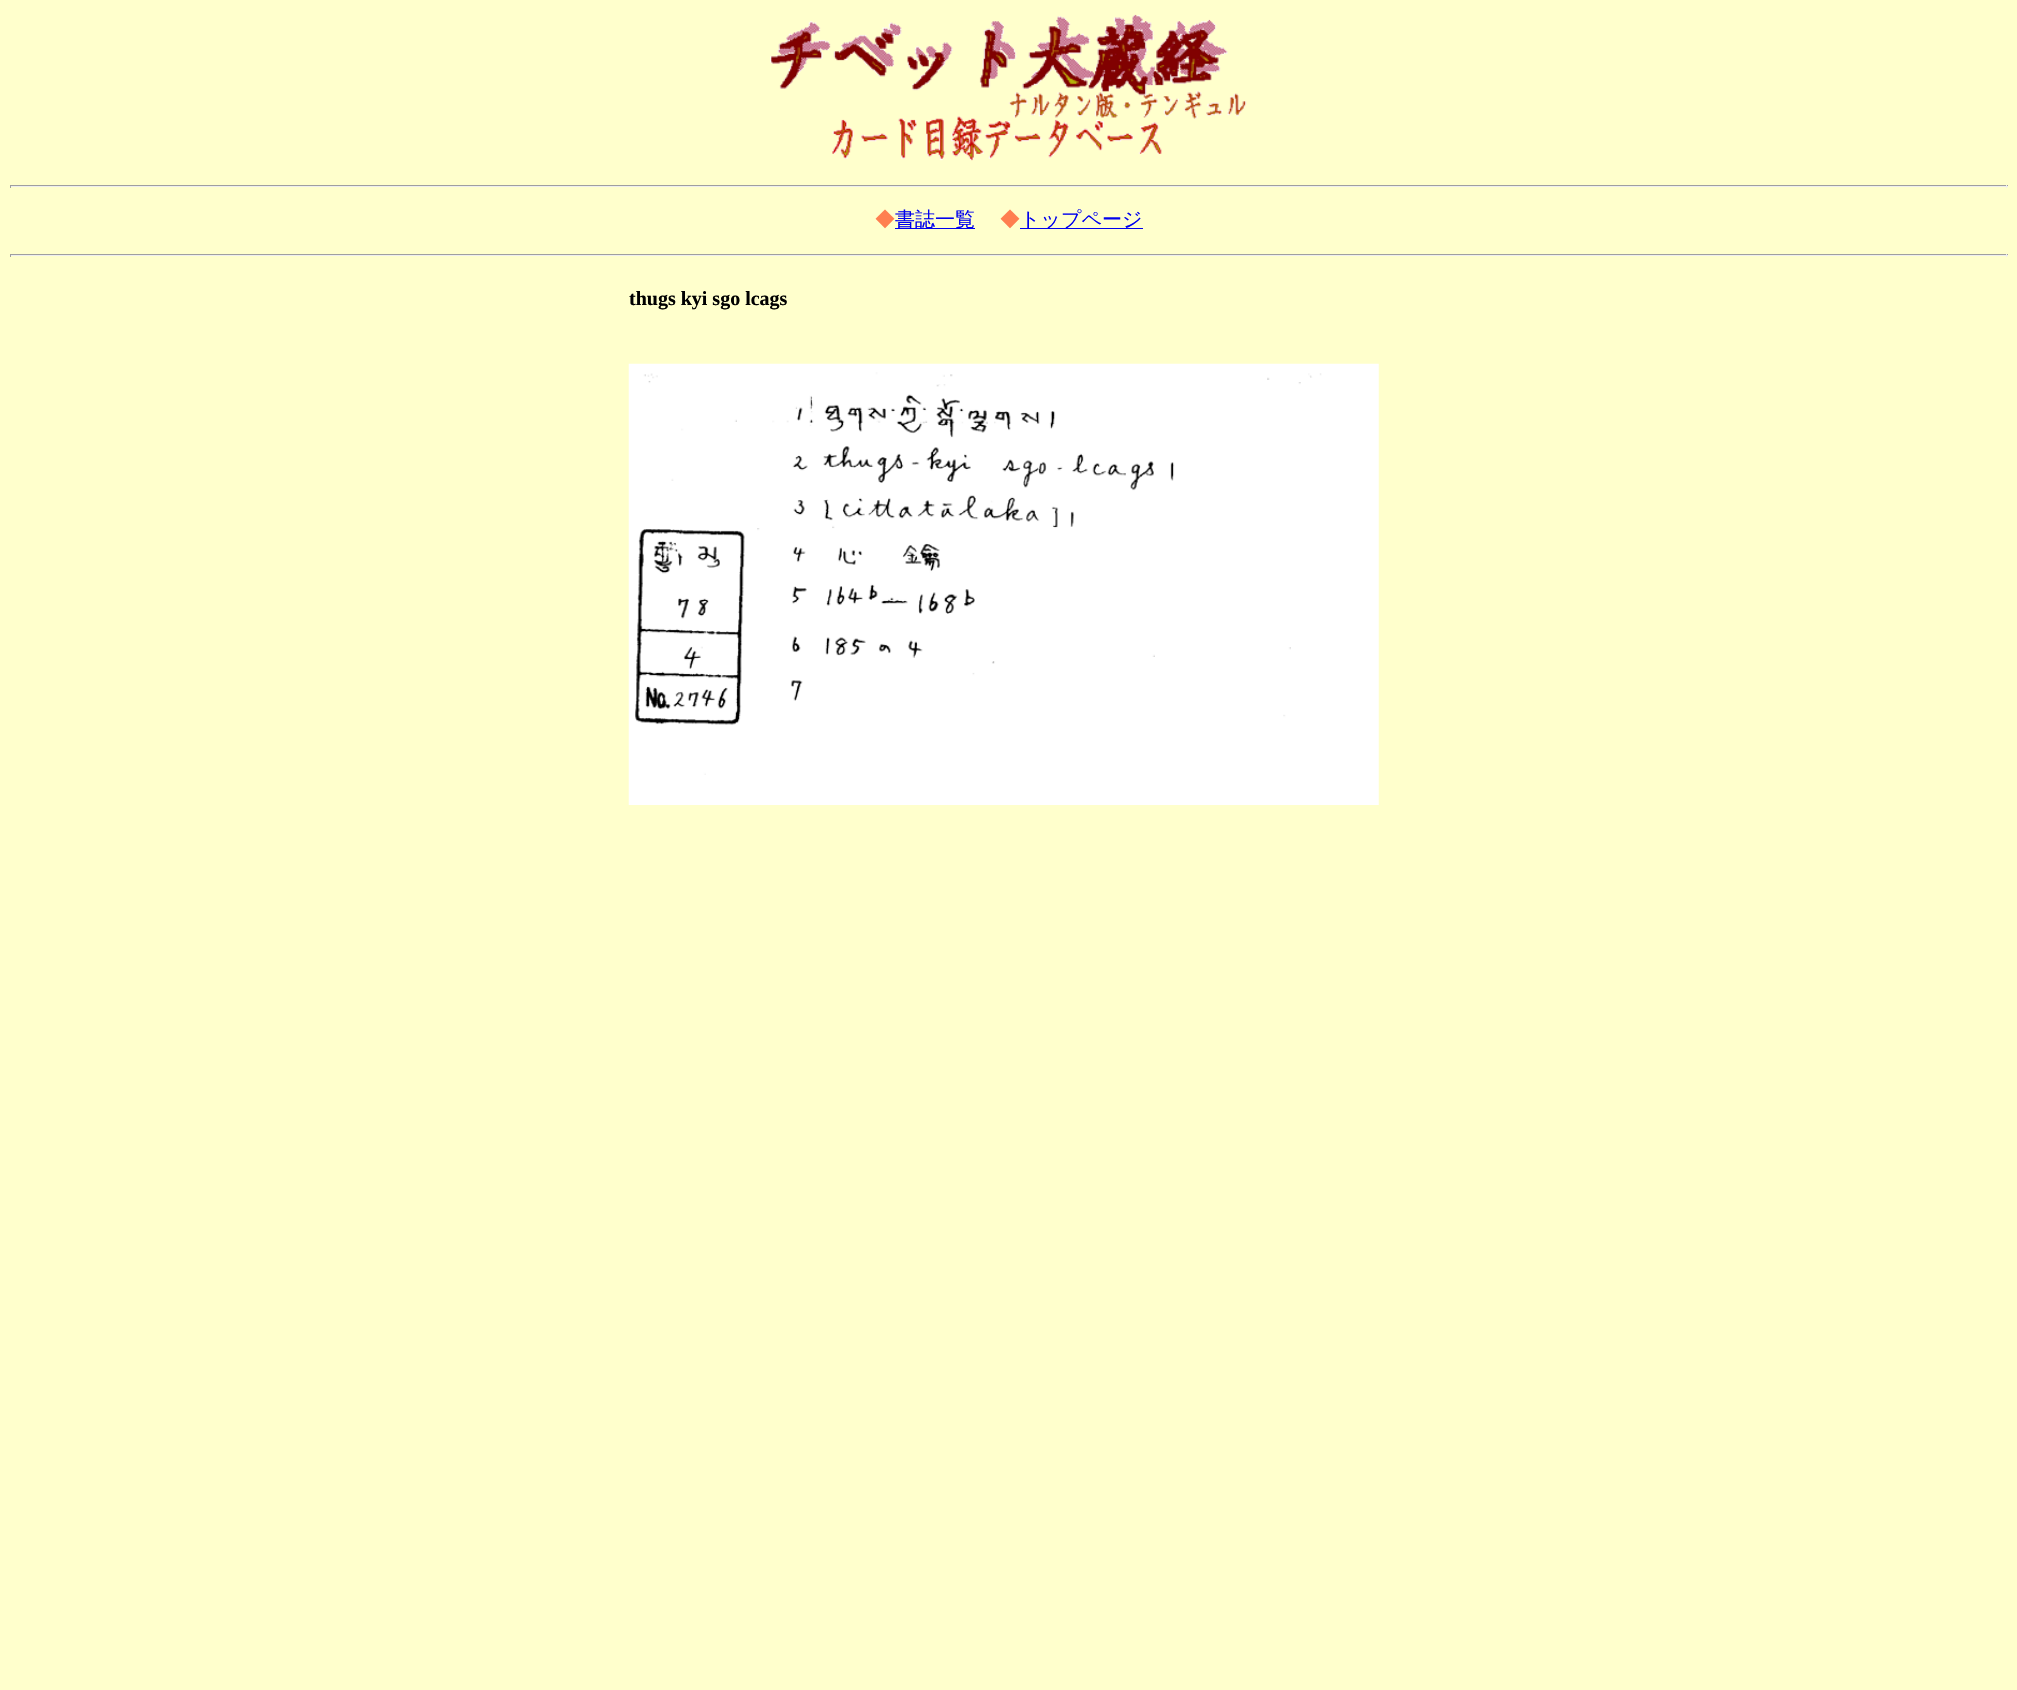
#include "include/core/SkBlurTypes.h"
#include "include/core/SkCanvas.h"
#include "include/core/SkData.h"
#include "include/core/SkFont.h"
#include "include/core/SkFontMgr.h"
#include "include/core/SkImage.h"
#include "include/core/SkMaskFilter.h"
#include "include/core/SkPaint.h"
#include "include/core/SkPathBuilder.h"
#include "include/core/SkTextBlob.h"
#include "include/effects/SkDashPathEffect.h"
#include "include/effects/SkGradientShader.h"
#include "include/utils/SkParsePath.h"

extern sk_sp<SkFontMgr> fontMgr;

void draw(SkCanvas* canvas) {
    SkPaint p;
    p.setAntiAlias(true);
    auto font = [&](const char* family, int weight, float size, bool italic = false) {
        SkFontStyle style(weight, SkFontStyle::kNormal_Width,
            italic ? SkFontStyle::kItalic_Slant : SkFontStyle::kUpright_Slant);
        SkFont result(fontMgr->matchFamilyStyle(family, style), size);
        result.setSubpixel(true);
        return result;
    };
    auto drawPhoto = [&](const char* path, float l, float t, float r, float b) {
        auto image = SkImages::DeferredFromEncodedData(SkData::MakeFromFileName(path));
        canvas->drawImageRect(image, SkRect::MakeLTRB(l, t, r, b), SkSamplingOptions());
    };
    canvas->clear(0xFFFFFFCC);
    drawPhoto("media/1.png", 770, 14, 1247, 161);
    {
        const struct { float l, t, r, b; SkColor color; } items[] = {
            {10, 185, 2008, 186, 0xFF9F9F9F},
            {2006, 185, 2007, 188, 0xFFEEEEEE},
            {10, 186, 2008, 187, 0xFFEEEEEE},
            {10, 185, 11, 188, 0xFF9F9F9F},
        };
        for (auto [l, t, r, b, color] : items) {
            p.setColor(color);
            canvas->drawRect(SkRect::MakeLTRB(l, t, r, b), p);
        }
    }
    auto font1 = font("WenQuanYi Zen Hei", 500, 20);
    p.setColor(0xFFFF7F50);
    canvas->drawString("◆", 875, 226, font1, p);
    p.setColor(0xFF0000EE);
    canvas->drawRect(SkRect::MakeLTRB(895, 228, 975, 229), p);
    canvas->drawString("書誌一覧", 895, 226, font1, p);
    p.setColor(0xFFFF7F50);
    canvas->drawString("◆", 1000, 226, font1, p);
    p.setColor(0xFF0000EE);
    canvas->drawRect(SkRect::MakeLTRB(1020, 228, 1143, 229), p);
    canvas->drawString("トップページ", 1020, 226, font1, p);
    {
        const struct { float l, t, r, b; SkColor color; } items[] = {
            {10, 254, 2008, 255, 0xFF9F9F9F},
            {2006, 254, 2007, 257, 0xFFEEEEEE},
            {10, 255, 2008, 256, 0xFFEEEEEE},
            {10, 254, 11, 257, 0xFF9F9F9F},
        };
        for (auto [l, t, r, b, color] : items) {
            p.setColor(color);
            canvas->drawRect(SkRect::MakeLTRB(l, t, r, b), p);
        }
    }
    auto font2 = font("Liberation Serif", 700, 20);
    p.setColor(0xFF000000);
    canvas->drawString("thugs kyi sgo lcags", 629, 305, font2, p);
    drawPhoto("media/2.png", 628, 363, 1379, 805);
}
